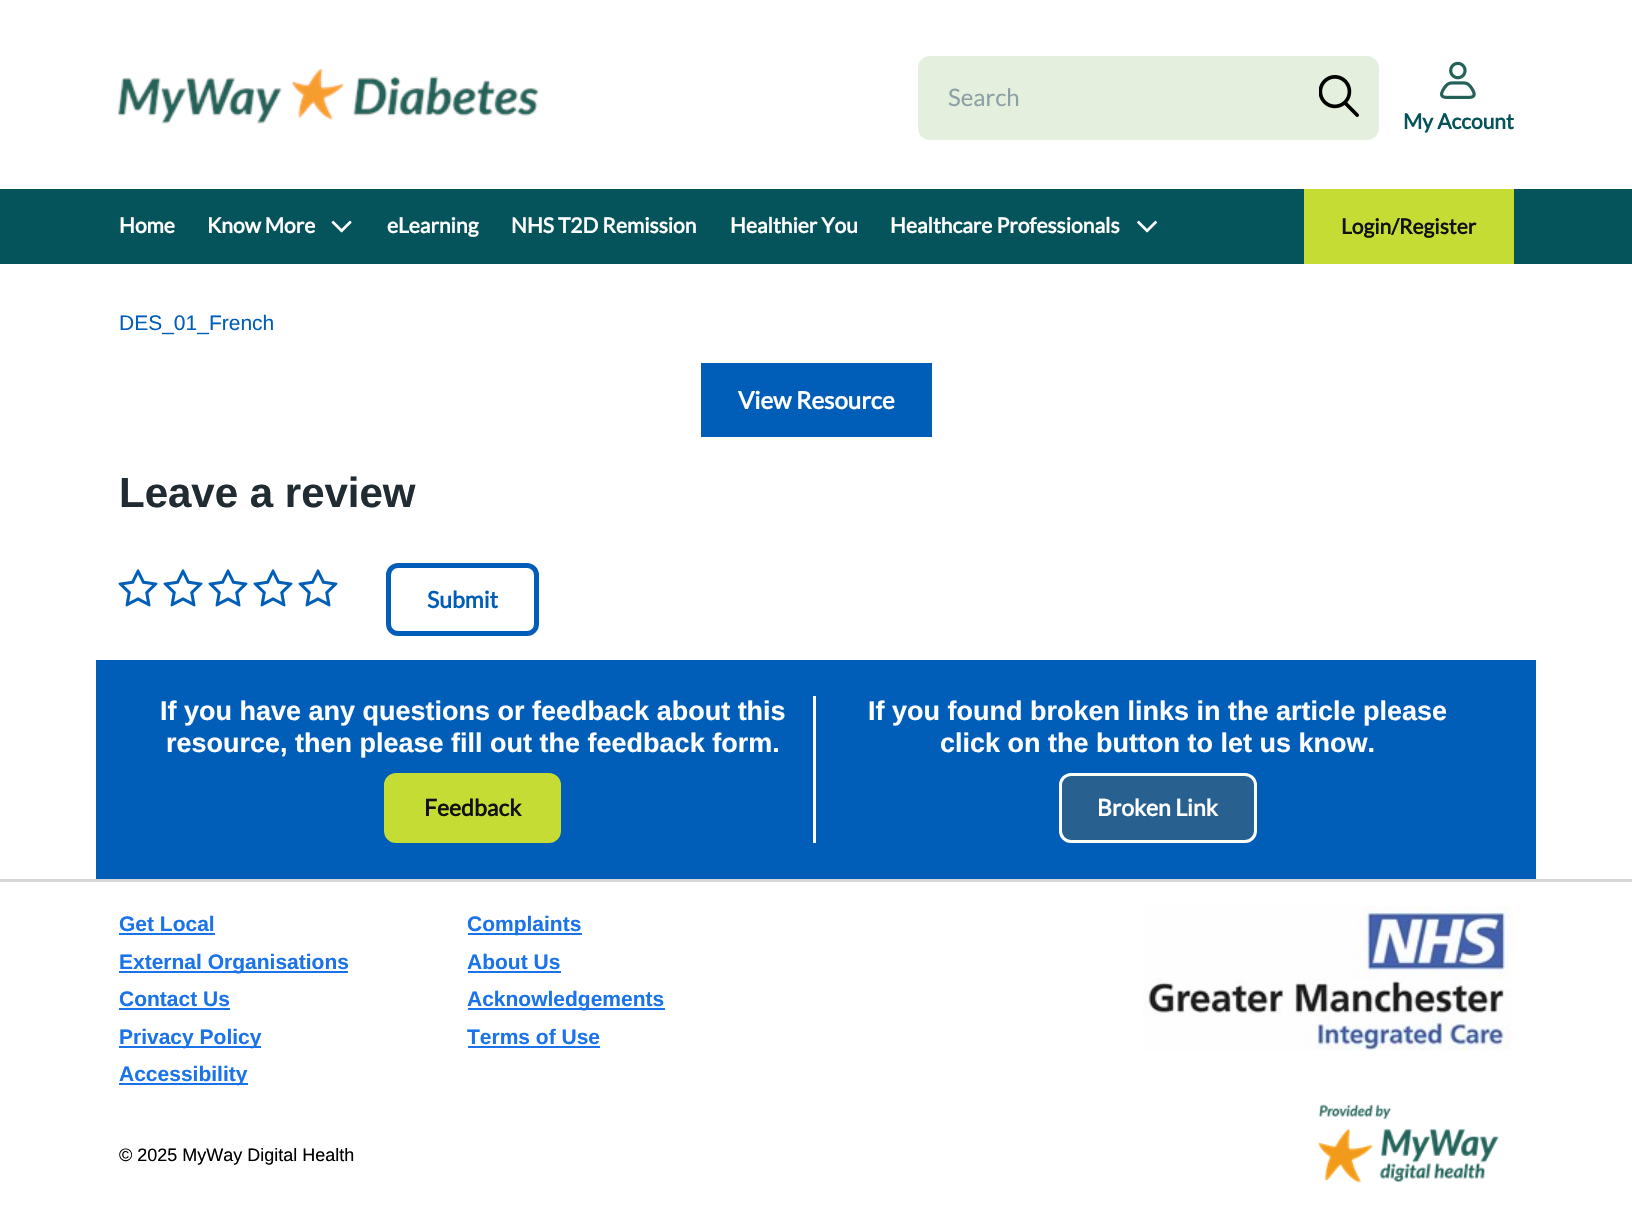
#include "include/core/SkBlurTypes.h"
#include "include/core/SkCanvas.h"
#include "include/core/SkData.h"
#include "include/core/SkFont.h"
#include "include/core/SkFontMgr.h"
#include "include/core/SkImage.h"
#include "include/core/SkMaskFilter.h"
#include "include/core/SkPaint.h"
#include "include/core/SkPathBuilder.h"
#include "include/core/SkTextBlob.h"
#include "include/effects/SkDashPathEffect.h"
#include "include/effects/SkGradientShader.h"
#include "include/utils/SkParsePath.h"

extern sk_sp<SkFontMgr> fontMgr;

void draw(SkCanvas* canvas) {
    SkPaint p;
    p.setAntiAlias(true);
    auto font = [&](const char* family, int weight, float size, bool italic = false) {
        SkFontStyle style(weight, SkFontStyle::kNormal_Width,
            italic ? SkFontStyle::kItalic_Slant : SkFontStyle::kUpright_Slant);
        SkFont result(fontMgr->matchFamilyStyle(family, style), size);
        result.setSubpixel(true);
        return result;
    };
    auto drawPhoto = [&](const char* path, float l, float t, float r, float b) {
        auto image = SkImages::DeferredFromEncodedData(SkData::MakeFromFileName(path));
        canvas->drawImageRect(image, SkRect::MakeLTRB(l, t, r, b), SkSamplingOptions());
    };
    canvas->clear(0xFFFFFFFF);
    drawPhoto("media/1.png", 118, 68, 539, 124);
    p.setColor(0xFFE5EFDE);
    canvas->drawPath(SkPathBuilder().moveTo(930, 59).lineTo(1308, 59).lineTo(1308, 137).lineTo(930, 137).cubicTo(925, 137, 921, 133, 921, 128).lineTo(921, 68).cubicTo(921, 63, 925, 59, 930, 59).close().detach(), p);
    p.setStyle(SkPaint::kStroke_Style);
    p.setStrokeWidth(6);
    canvas->drawPath(SkPathBuilder().moveTo(930, 59).lineTo(1308, 59).lineTo(1308, 137).lineTo(930, 137).cubicTo(925, 137, 921, 133, 921, 128).lineTo(921, 68).cubicTo(921, 63, 925, 59, 930, 59).close().detach(), p);
    auto font1 = font("Lato", 400, 24);
    p.setStyle(SkPaint::kFill_Style);
    p.setColor(0xFF8CA1A6);
    canvas->drawString("Search", 948, 106, font1, p);
    p.setColor(0xFFE5EFDE);
    canvas->drawPath(SkPathBuilder().moveTo(1311, 56).lineTo(1367, 56).cubicTo(1373.5f, 56, 1379, 61.5f, 1379, 68).lineTo(1379, 128).cubicTo(1379, 134.5f, 1373.5f, 140, 1367, 140).lineTo(1311, 140).close().detach(), p);
    drawPhoto("media/2.png", 1319, 75, 1359, 117);
    drawPhoto("media/3.png", 1440, 61, 1476, 99);
    auto font2 = font("Lato", 700, 21);
    p.setColor(0xFF05535B);
    canvas->drawString("My Account", 1403, 129, font2, p);
    canvas->drawRect(SkRect::MakeLTRB(0, 189, 1632, 264), p);
    p.setColor(0xFFFFFFFF);
    canvas->drawString("Home", 119, 233, font2, p);
    canvas->drawString("Know More", 207, 233, font2, p);
    drawPhoto("media/4.png", 331, 220, 352, 233);
    {
        const struct { const char* s; float x, y; } items[] = {
            {"eLearning", 387, 233},
            {"NHS T2D Remission", 511, 233},
            {"Healthier You", 730, 233},
            {"Healthcare Professionals", 890, 233},
        };
        for (auto [s, x, y] : items) {
            canvas->drawString(s, x, y, font2, p);
        }
    }
    drawPhoto("media/5.png", 1137, 220, 1158, 233);
    p.setColor(0xFFC4DC34);
    canvas->drawRect(SkRect::MakeLTRB(1304, 189, 1514, 264), p);
    p.setColor(0xFF121212);
    canvas->drawString("Login/Register", 1341, 234, font2, p);
    auto font3 = font("Liberation Sans", 400, 21);
    p.setColor(0xFF005EB8);
    canvas->drawString("DES_01_French", 119, 330, font3, p);
    canvas->drawRect(SkRect::MakeLTRB(701, 363, 932, 437), p);
    auto font4 = font("Lato", 700, 24);
    p.setColor(0xFFFFFFFF);
    canvas->drawString("View Resource", 738, 409, font4, p);
    auto font5 = font("Liberation Sans", 700, 42);
    p.setColor(0xFF212B32);
    canvas->drawString("Leave a review", 119, 507, font5, p);
    drawPhoto("media/6.png", 118, 569, 158, 607);
    drawPhoto("media/6.png", 163, 569, 203, 607);
    drawPhoto("media/6.png", 208, 569, 248, 607);
    drawPhoto("media/6.png", 253, 569, 293, 607);
    drawPhoto("media/6.png", 298, 569, 338, 607);
    p.setStyle(SkPaint::kStroke_Style);
    p.setStrokeWidth(5);
    p.setColor(0xFF005EB8);
    canvas->drawRoundRect(SkRect::MakeLTRB(388.5f, 565.5f, 536.5f, 633.5f), 9.5f, 9.5f, p);
    auto font6 = font("Lato", 700, 23);
    p.setStyle(SkPaint::kFill_Style);
    canvas->drawString("Submit", 427, 608, font6, p);
    canvas->drawRect(SkRect::MakeLTRB(96, 660, 1536, 879), p);
    p.setColor(0xFFFFFFFF);
    canvas->drawRect(SkRect::MakeLTRB(813, 696, 816, 843), p);
    auto font7 = font("Liberation Sans", 700, 27);
    canvas->drawString("If you have any questions or feedback about this", 160, 720, font7, p);
    canvas->drawString("resource, then please fill out the feedback form.", 166, 752, font7, p);
    p.setColor(0xFFC4DC34);
    canvas->drawRoundRect(SkRect::MakeLTRB(385.5f, 774.5f, 559.5f, 841.5f), 10.5f, 10.5f, p);
    p.setStyle(SkPaint::kStroke_Style);
    p.setStrokeWidth(3);
    canvas->drawRoundRect(SkRect::MakeLTRB(385.5f, 774.5f, 559.5f, 841.5f), 10.5f, 10.5f, p);
    p.setStyle(SkPaint::kFill_Style);
    p.setColor(0xFF121212);
    canvas->drawString("Feedback", 424, 816, font6, p);
    p.setColor(0xFFFFFFFF);
    canvas->drawString("If you found broken links in the article please", 868, 720, font7, p);
    canvas->drawString("click on the button to let us know.", 940, 752, font7, p);
    p.setColor(0xFF286090);
    canvas->drawRoundRect(SkRect::MakeLTRB(1060.5f, 774.5f, 1255.5f, 841.5f), 10.5f, 10.5f, p);
    p.setStyle(SkPaint::kStroke_Style);
    p.setColor(0xFFFFFFFF);
    canvas->drawRoundRect(SkRect::MakeLTRB(1060.5f, 774.5f, 1255.5f, 841.5f), 10.5f, 10.5f, p);
    p.setStyle(SkPaint::kFill_Style);
    canvas->drawString("Broken Link", 1097, 816, font6, p);
    p.setColor(0xFFD5D5D5);
    canvas->drawRect(SkRect::MakeLTRB(0, 879, 1632, 882), p);
    auto font8 = font("Liberation Sans", 700, 21);
    p.setColor(0xFF1A73E8);
    canvas->drawString("Get Local", 119, 931, font8, p);
    canvas->drawRect(SkRect::MakeLTRB(119, 933, 215, 935), p);
    canvas->drawRect(SkRect::MakeLTRB(468, 933, 582, 935), p);
    canvas->drawString("Complaints", 467, 931, font8, p);
    canvas->drawRect(SkRect::MakeLTRB(119, 971, 348, 973), p);
    canvas->drawString("External Organisations", 119, 969, font8, p);
    canvas->drawString("About Us", 467, 969, font8, p);
    canvas->drawRect(SkRect::MakeLTRB(468, 971, 561, 973), p);
    canvas->drawString("Contact Us", 119, 1006, font8, p);
    canvas->drawRect(SkRect::MakeLTRB(119, 1008, 230, 1010), p);
    canvas->drawRect(SkRect::MakeLTRB(468, 1008, 665, 1010), p);
    canvas->drawString("Acknowledgements", 467, 1006, font8, p);
    canvas->drawRect(SkRect::MakeLTRB(119, 1046, 261, 1048), p);
    canvas->drawString("Privacy Policy", 119, 1044, font8, p);
    canvas->drawString("Terms of Use", 467, 1044, font8, p);
    canvas->drawRect(SkRect::MakeLTRB(468, 1046, 600, 1048), p);
    canvas->drawRect(SkRect::MakeLTRB(119, 1083, 248, 1085), p);
    canvas->drawString("Accessibility", 119, 1081, font8, p);
    drawPhoto("media/7.png", 1143, 906, 1513, 1051);
    auto font9 = font("Liberation Sans", 400, 18);
    p.setColor(0xFF000000);
    canvas->drawString("© 2025 MyWay Digital Health", 119, 1161, font9, p);
    drawPhoto("media/8.png", 1318, 1104, 1499, 1183);
}
